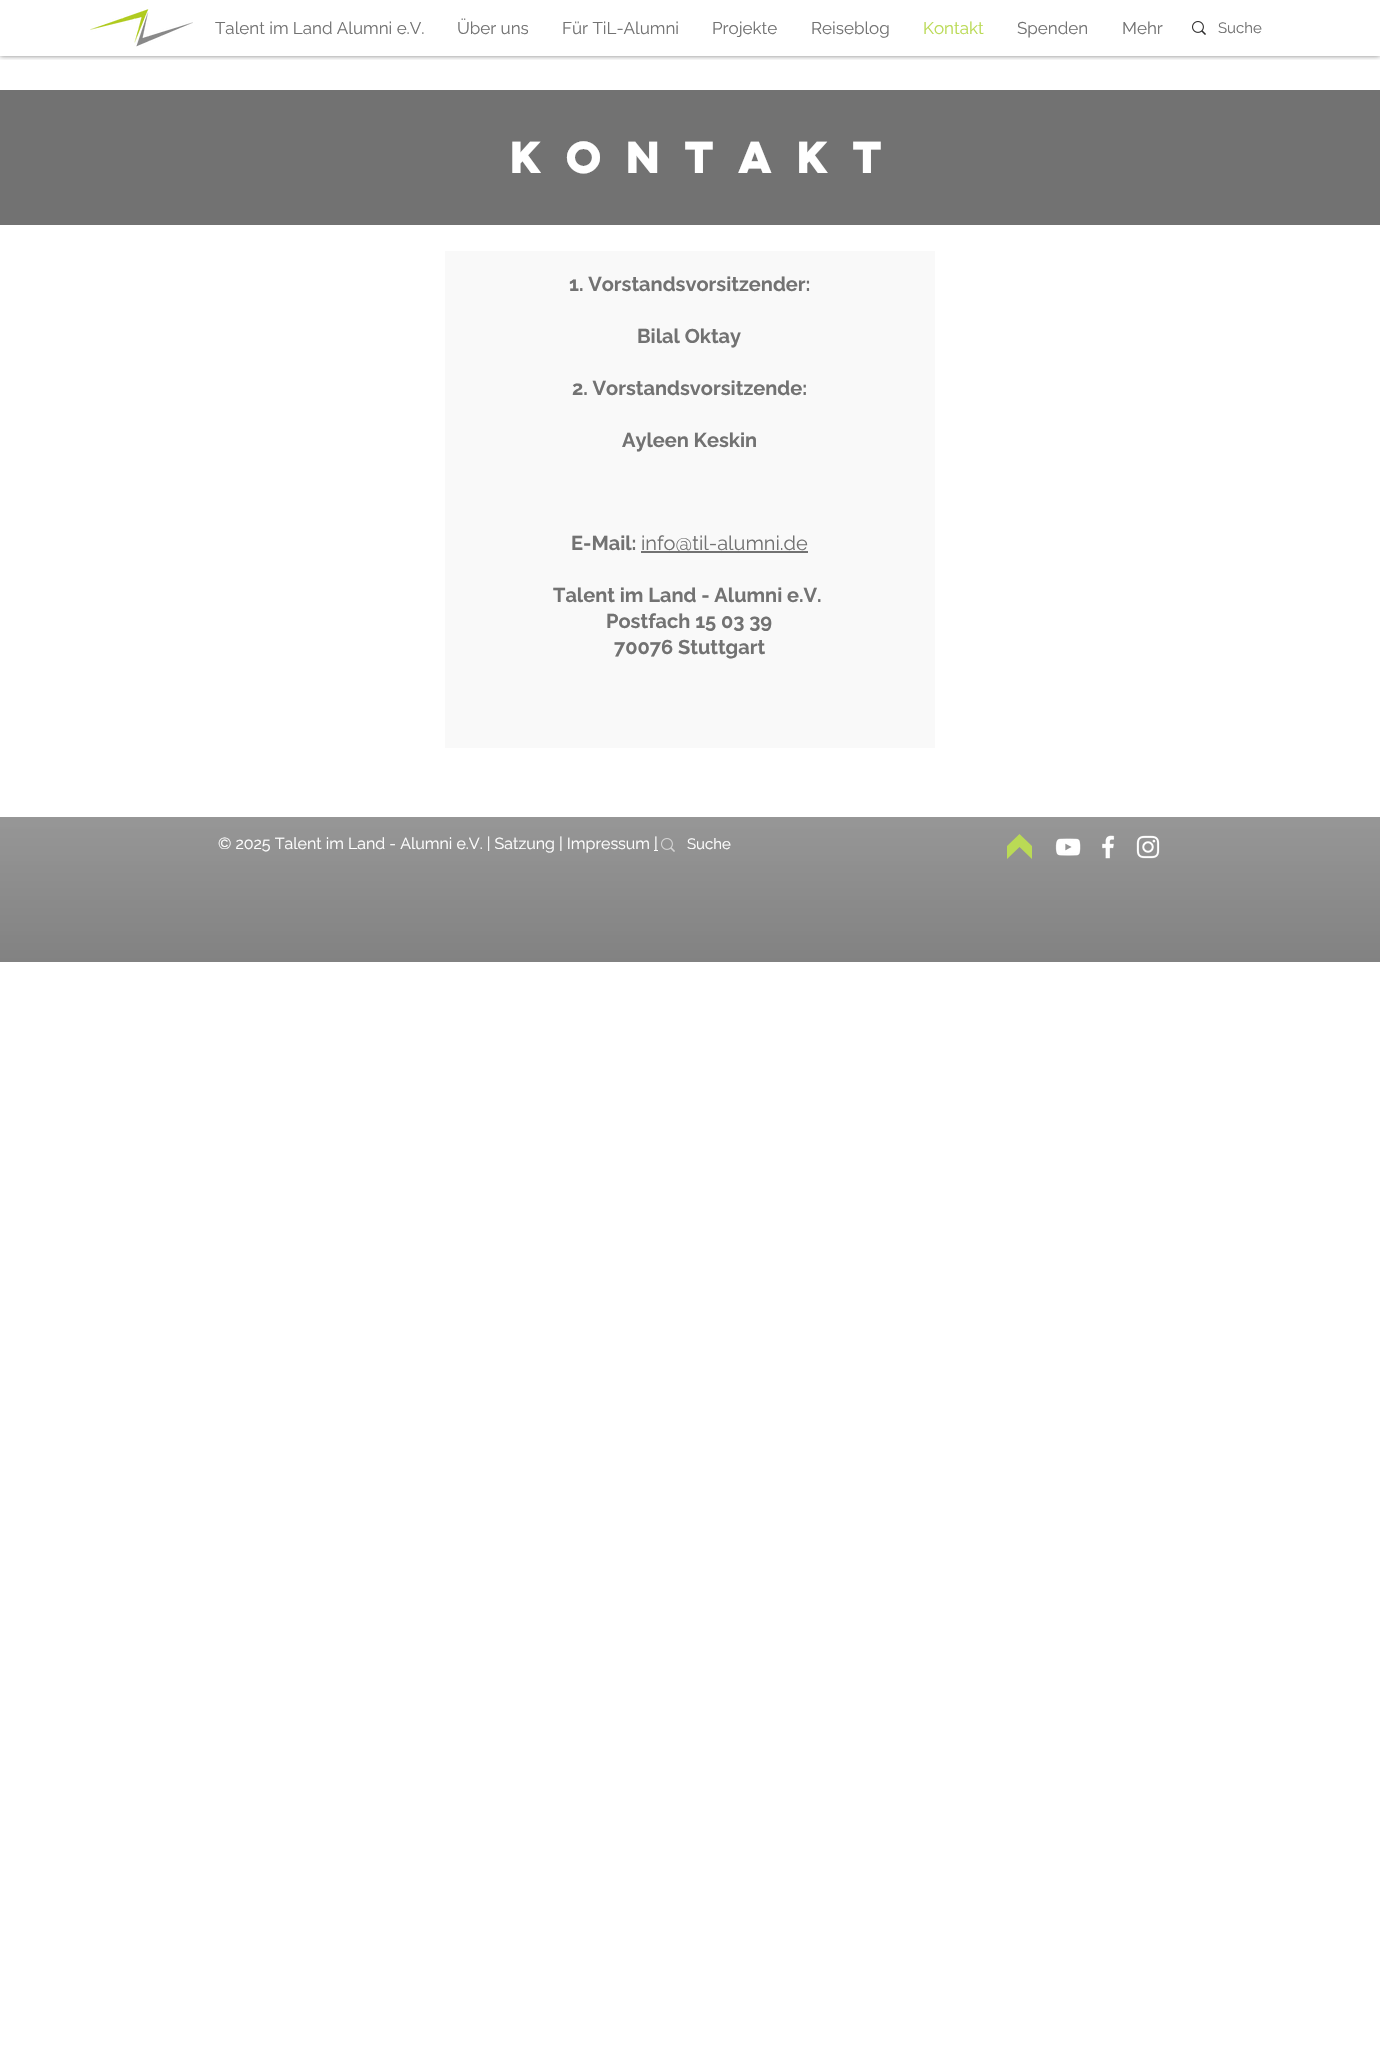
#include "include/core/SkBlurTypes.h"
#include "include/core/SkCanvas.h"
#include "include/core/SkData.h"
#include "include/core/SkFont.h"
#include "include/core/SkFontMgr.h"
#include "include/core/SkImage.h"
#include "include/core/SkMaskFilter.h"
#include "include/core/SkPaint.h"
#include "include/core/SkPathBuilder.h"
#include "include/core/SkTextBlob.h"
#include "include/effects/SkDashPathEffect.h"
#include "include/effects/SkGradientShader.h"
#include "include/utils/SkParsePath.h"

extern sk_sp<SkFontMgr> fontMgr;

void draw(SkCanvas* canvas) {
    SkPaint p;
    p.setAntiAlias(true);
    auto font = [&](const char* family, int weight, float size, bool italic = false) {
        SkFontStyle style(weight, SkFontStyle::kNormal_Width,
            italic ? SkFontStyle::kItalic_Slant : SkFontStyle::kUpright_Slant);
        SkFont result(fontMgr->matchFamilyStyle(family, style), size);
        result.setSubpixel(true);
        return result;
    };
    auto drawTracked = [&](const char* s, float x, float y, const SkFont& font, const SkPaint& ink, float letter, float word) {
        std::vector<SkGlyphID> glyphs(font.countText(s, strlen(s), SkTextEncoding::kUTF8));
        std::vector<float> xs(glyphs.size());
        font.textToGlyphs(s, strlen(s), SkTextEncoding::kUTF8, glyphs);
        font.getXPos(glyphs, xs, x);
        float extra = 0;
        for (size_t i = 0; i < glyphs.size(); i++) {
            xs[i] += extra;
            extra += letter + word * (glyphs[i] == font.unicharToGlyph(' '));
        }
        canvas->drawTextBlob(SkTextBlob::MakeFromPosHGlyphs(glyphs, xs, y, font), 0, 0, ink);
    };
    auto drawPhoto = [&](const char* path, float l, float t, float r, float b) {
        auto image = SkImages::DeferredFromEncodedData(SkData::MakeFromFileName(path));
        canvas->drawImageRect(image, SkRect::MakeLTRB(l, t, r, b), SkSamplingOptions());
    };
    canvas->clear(0xFFFFFFFF);
    canvas->save();
    canvas->clipRect(SkRect::MakeLTRB(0, 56, 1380, 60));
    p.setColor(0x80000000);
    p.setMaskFilter(SkMaskFilter::MakeBlur(kNormal_SkBlurStyle, 2.5f));
    canvas->drawRect(SkRect::MakeLTRB(0, 0, 1380, 56), p);
    p.setMaskFilter(nullptr);
    canvas->restore();
    drawPhoto("media/1.png", 90, 9, 193, 47);
    auto font1 = font("Raleway", 400, 17);
    p.setColor(0xFF727272);
    {
        const struct { const char* s; float x, y; } items[] = {
            {"Talent im Land Alumni e.V.", 215, 34},
            {"Über uns", 457, 34},
            {"Für TiL-Alumni", 562, 34},
            {"Projekte", 712, 34},
            {"Reiseblog", 811, 34},
        };
        for (auto [s, x, y] : items) {
            canvas->drawString(s, x, y, font1, p);
        }
    }
    p.setColor(0xFFBADA55);
    canvas->drawString("Kontakt", 923, 34, font1, p);
    p.setColor(0xFF727272);
    canvas->drawString("Spenden", 1017, 34, font1, p);
    canvas->drawString("Mehr", 1122, 34, font1, p);
    drawPhoto("media/2.png", 1192, 21, 1206, 35);
    auto font2 = font("Raleway", 400, 15);
    canvas->drawString("Suche", 1218, 33, font2, p);
    canvas->drawRect(SkRect::MakeLTRB(0, 90, 1380, 225), p);
    auto font3 = font("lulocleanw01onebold", 700, 40);
    p.setColor(0xFFFFFFFF);
    drawTracked("Kontakt", 510, 173, font3, p, 16, 0);
    p.setColor(0xFFF9F9F9);
    canvas->drawRect(SkRect::MakeLTRB(445, 251, 935, 748), p);
    auto font4 = font("Raleway", 700, 20);
    p.setColor(0xFF727272);
    {
        const struct { const char* s; float x, y; } items[] = {
            {"1. Vorstandsvorsitzender:", 569, 291},
            {"Bilal Oktay", 637, 343},
            {"2. Vorstandsvorsitzende:", 572, 395},
            {"Ayleen Keskin", 622, 447},
            {"E-Mail:", 571, 550},
        };
        for (auto [s, x, y] : items) {
            canvas->drawString(s, x, y, font4, p);
        }
    }
    canvas->drawRect(SkRect::MakeLTRB(641, 551, 808, 553), p);
    auto font5 = font("Raleway", 400, 20);
    canvas->drawString("info@til-alumni.de", 641, 550, font5, p);
    {
        const struct { const char* s; float x, y; } items[] = {
            {"Talent im Land - Alumni e.V.", 553, 602},
            {"Postfach 15 03 39", 606, 628},
            {"70076 Stuttgart", 614, 654},
        };
        for (auto [s, x, y] : items) {
            canvas->drawString(s, x, y, font4, p);
        }
    }
    canvas->drawRect(SkRect::MakeLTRB(0, 817, 1380, 962), p);
    drawPhoto("media/3.png", 0, 817, 1380, 962);
    auto font6 = font("Raleway", 400, 16);
    p.setColor(0xFFFFFFFF);
    canvas->drawString("© 2025 Talent im Land - Alumni e.V. | Satzung | Impressum", 218, 849, font6, p);
    canvas->drawRect(SkRect::MakeLTRB(654, 850, 658, 851), p);
    canvas->drawString("|", 654, 849, font6, p);
    drawPhoto("media/4.png", 661, 838, 675, 852);
    canvas->drawString("Suche", 687, 849, font2, p);
    p.setColor(0xFFBADA55);
    canvas->drawPath(SkPathBuilder().moveTo(1032, 859).lineTo(1019.5f, 847).lineTo(1007, 859).lineTo(1007, 846).lineTo(1019.5f, 834).lineTo(1032, 846).close().detach(), p);
    drawPhoto("media/5.png", 1055, 838, 1081, 856);
    drawPhoto("media/6.png", 1102, 835, 1115, 859);
    drawPhoto("media/7.png", 1136, 835, 1160, 859);
}
